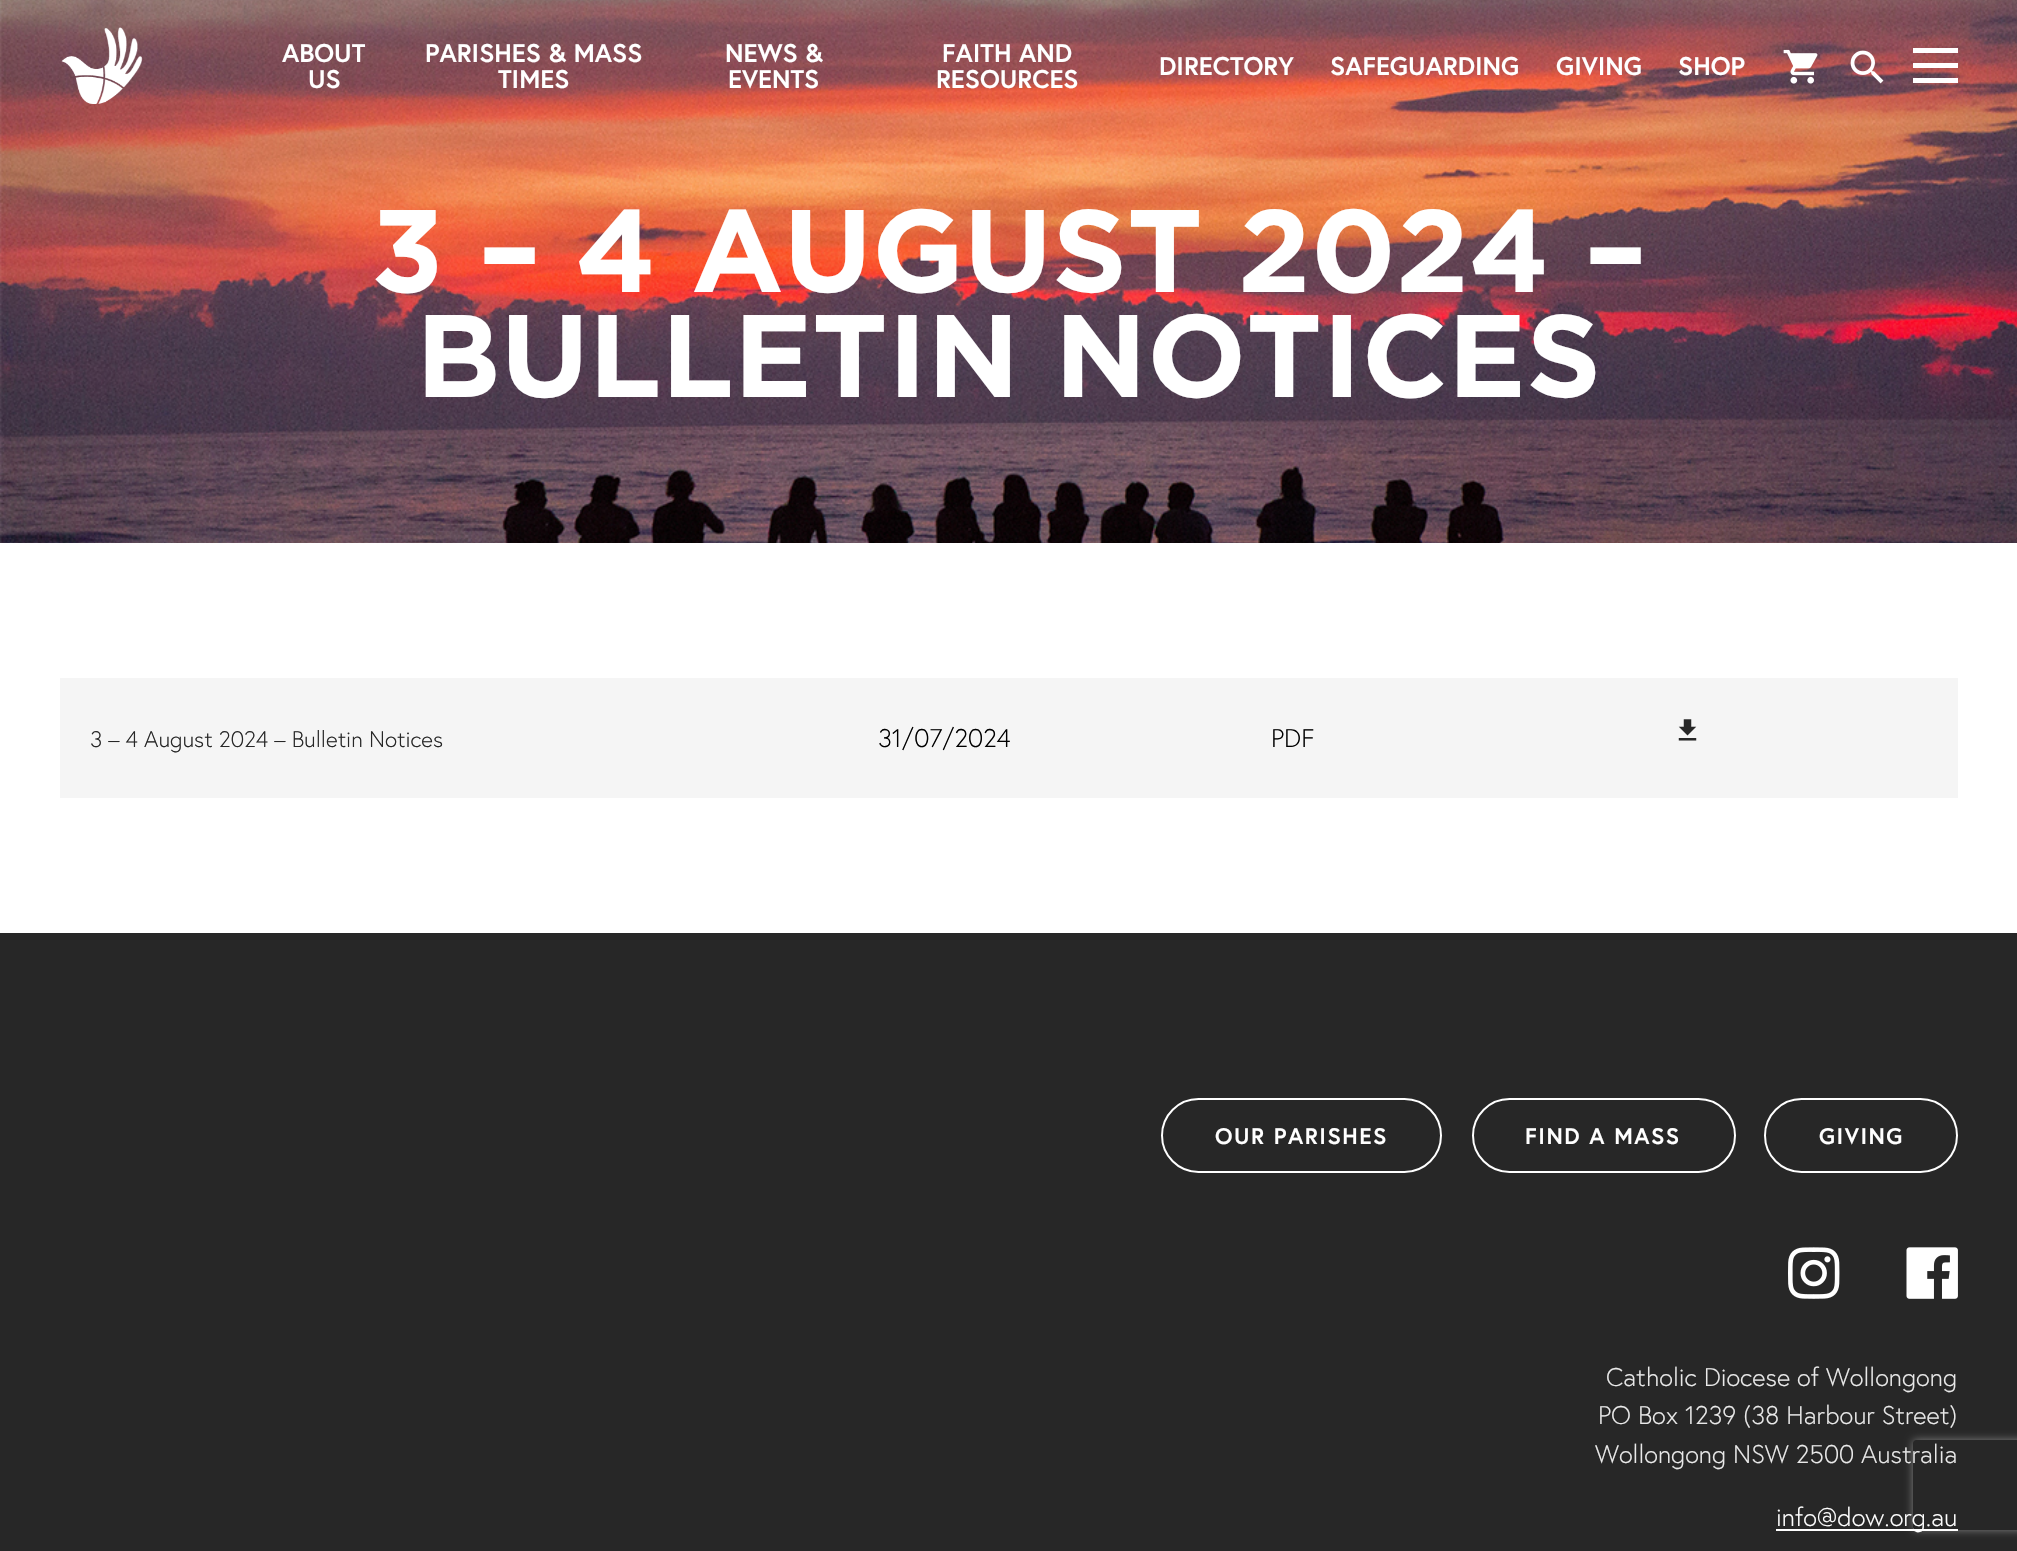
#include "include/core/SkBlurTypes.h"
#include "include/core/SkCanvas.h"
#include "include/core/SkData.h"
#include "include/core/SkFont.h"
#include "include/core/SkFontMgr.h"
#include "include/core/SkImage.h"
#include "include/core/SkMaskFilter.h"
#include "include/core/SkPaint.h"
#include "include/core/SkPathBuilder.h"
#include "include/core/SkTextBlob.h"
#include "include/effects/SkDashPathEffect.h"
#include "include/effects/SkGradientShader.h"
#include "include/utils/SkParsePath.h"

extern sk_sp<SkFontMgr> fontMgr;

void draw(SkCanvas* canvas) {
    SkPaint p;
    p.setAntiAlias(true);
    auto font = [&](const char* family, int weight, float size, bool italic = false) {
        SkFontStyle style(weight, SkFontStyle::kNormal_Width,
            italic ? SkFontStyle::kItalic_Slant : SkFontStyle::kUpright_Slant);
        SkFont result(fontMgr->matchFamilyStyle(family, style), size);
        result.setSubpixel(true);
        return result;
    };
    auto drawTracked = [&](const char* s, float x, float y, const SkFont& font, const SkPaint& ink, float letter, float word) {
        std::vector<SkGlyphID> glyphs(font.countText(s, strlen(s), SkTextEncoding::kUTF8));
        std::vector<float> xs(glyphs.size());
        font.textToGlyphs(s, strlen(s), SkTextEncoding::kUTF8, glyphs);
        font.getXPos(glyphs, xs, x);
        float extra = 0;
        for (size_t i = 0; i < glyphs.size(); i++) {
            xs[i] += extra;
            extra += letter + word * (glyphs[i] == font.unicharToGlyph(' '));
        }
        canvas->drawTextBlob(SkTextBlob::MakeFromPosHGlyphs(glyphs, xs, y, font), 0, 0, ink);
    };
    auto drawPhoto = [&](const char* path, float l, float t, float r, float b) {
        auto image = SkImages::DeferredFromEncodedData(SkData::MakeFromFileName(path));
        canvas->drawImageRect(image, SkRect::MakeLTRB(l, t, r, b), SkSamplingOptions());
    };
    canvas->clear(0xFFFFFFFF);
    drawPhoto("media/4.png", 0, 0, 2017, 543);
    drawPhoto("media/1.png", 61, 27, 143, 104);
    auto font1 = font("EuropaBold", 700, 25.5f);
    p.setColor(0xFFFFFFFF);
    {
        const struct { const char* s; float x, y; } items[] = {
            {"ABOUT", 282, 62},
            {"US", 308, 88},
            {"PARISHES & MASS", 425, 62},
            {"TIMES", 498, 88},
            {"NEWS &", 725, 62},
            {"EVENTS", 728, 88},
            {"FAITH AND", 942, 62},
            {"RESOURCES", 936, 88},
            {"DIRECTORY", 1159, 75},
            {"SAFEGUARDING", 1330, 75},
            {"GIVING", 1556, 75},
            {"SHOP", 1678, 75},
        };
        for (auto [s, x, y] : items) {
            canvas->drawString(s, x, y, font1, p);
        }
    }
    drawPhoto("media/2.png", 1783, 49, 1818, 84);
    drawPhoto("media/3.png", 1850, 50, 1884, 84);
    {
        const struct { float l, t, r, b; SkColor color; } items[] = {
            {1913, 48, 1958, 53, 0xFFFFFFFF},
            {1913, 63, 1958, 68, 0xFFFFFFFF},
            {1913, 78, 1958, 83, 0xFFFFFFFF},
        };
        for (auto [l, t, r, b, color] : items) {
            p.setColor(color);
            canvas->drawRect(SkRect::MakeLTRB(l, t, r, b), p);
        }
    }
    auto font2 = font("Gotham", 700, 117);
    canvas->drawString("3 – 4 AUGUST 2024 –", 371, 292, font2, p);
    canvas->drawString("BULLETIN NOTICES", 416, 397, font2, p);
    p.setColor(0xFFF5F5F5);
    canvas->drawRect(SkRect::MakeLTRB(60, 678, 1958, 798), p);
    auto font3 = font("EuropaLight", 300, 22.5f);
    p.setColor(0xFF272727);
    canvas->drawString("3 – 4 August 2024 – Bulletin Notices", 90, 747, font3, p);
    auto font4 = font("EuropaLight", 300, 25.5f);
    p.setColor(0xFF000000);
    canvas->drawString("31/07/2024", 878, 747, font4, p);
    canvas->drawString("PDF", 1271, 747, font4, p);
    drawPhoto("media/5.png", 1678, 719, 1697, 741);
    p.setColor(0xFF272727);
    canvas->drawRect(SkRect::MakeLTRB(0, 933, 2017, 1551), p);
    p.setStyle(SkPaint::kStroke_Style);
    p.setStrokeWidth(2);
    p.setColor(0xFFFFFFFF);
    canvas->drawRoundRect(SkRect::MakeLTRB(1162, 1099, 1441, 1172), 36.5f, 36.5f, p);
    auto font5 = font("EuropaBold", 700, 22.5f);
    p.setStyle(SkPaint::kFill_Style);
    drawTracked("OUR PARISHES", 1215, 1144, font5, p, 1.5f, 0);
    p.setStyle(SkPaint::kStroke_Style);
    canvas->drawRoundRect(SkRect::MakeLTRB(1473, 1099, 1735, 1172), 36.5f, 36.5f, p);
    p.setStyle(SkPaint::kFill_Style);
    drawTracked("FIND A MASS", 1525, 1144, font5, p, 1.5f, 0);
    p.setStyle(SkPaint::kStroke_Style);
    canvas->drawRoundRect(SkRect::MakeLTRB(1765, 1099, 1957, 1172), 36.5f, 36.5f, p);
    p.setStyle(SkPaint::kFill_Style);
    drawTracked("GIVING", 1819, 1144, font5, p, 1.5f, 0);
    drawPhoto("media/6.png", 1788, 1247, 1840, 1299);
    drawPhoto("media/7.png", 1906, 1247, 1958, 1299);
    p.setColor(0xFFE9E9E9);
    canvas->drawString("Catholic Diocese of Wollongong", 1606, 1386, font4, p);
    canvas->save();
    canvas->clipPath(SkPathBuilder(SkPathFillType::kEvenOdd).moveTo(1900, 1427).lineTo(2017, 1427).lineTo(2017, 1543).lineTo(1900, 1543).close().moveTo(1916, 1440).lineTo(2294, 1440).cubicTo(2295.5f, 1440, 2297, 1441.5f, 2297, 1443).lineTo(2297, 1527).cubicTo(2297, 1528.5f, 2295.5f, 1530, 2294, 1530).lineTo(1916, 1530).cubicTo(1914.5f, 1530, 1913, 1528.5f, 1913, 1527).lineTo(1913, 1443).cubicTo(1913, 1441.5f, 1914.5f, 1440, 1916, 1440).close().detach(), true);
    p.setColor(0xFF808080);
    p.setMaskFilter(SkMaskFilter::MakeBlur(kNormal_SkBlurStyle, 4));
    canvas->drawRoundRect(SkRect::MakeLTRB(1913, 1440, 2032, 1530), 3, 3, p);
    p.setMaskFilter(nullptr);
    canvas->restore();
    p.setColor(0xFFE9E9E9);
    canvas->drawString("PO Box 1239 (38 Harbour Street)", 1598, 1424, font4, p);
    canvas->drawString("Wollongong NSW 2500 Australia", 1595, 1463, font4, p);
    p.setColor(0xFFFFFFFF);
    canvas->drawRect(SkRect::MakeLTRB(1776, 1529, 1958, 1531), p);
    canvas->drawString("info@dow.org.au", 1776, 1526, font4, p);
}
